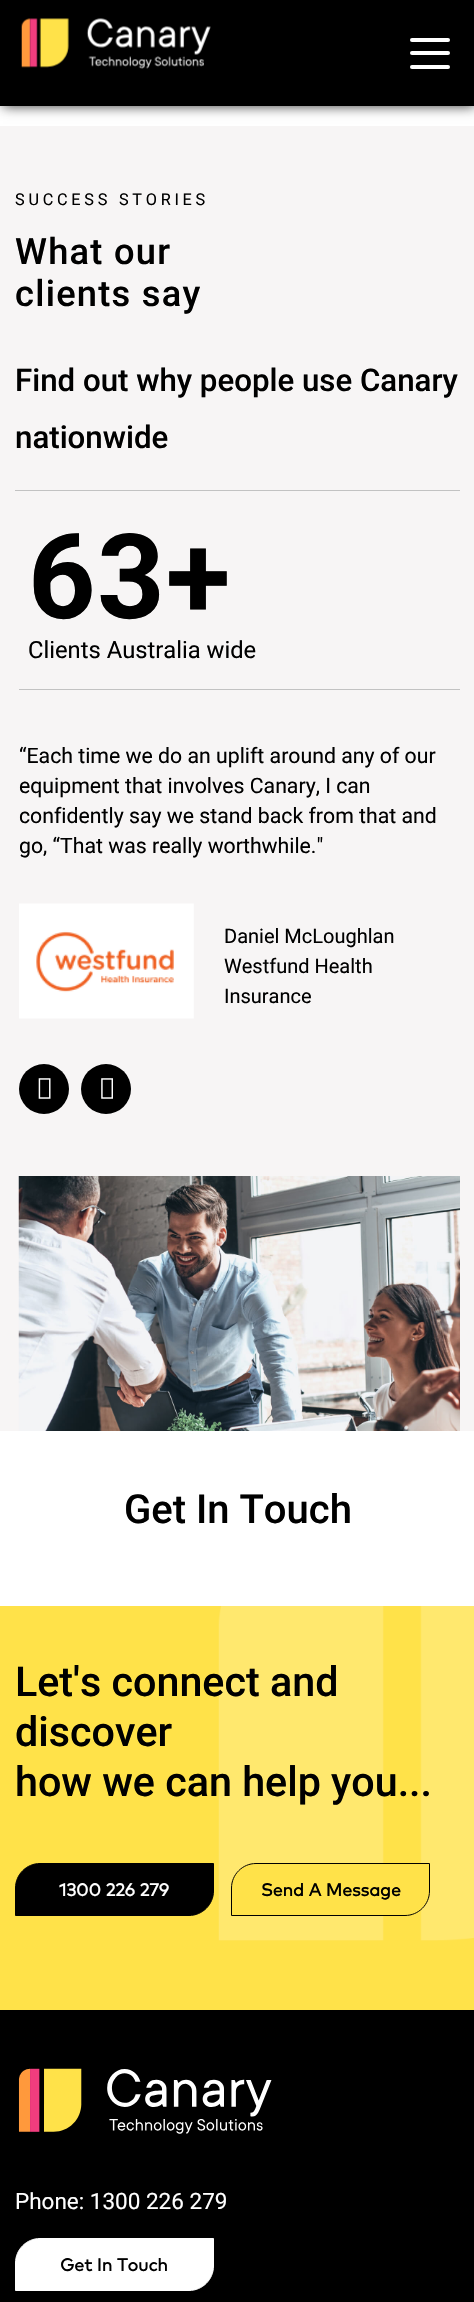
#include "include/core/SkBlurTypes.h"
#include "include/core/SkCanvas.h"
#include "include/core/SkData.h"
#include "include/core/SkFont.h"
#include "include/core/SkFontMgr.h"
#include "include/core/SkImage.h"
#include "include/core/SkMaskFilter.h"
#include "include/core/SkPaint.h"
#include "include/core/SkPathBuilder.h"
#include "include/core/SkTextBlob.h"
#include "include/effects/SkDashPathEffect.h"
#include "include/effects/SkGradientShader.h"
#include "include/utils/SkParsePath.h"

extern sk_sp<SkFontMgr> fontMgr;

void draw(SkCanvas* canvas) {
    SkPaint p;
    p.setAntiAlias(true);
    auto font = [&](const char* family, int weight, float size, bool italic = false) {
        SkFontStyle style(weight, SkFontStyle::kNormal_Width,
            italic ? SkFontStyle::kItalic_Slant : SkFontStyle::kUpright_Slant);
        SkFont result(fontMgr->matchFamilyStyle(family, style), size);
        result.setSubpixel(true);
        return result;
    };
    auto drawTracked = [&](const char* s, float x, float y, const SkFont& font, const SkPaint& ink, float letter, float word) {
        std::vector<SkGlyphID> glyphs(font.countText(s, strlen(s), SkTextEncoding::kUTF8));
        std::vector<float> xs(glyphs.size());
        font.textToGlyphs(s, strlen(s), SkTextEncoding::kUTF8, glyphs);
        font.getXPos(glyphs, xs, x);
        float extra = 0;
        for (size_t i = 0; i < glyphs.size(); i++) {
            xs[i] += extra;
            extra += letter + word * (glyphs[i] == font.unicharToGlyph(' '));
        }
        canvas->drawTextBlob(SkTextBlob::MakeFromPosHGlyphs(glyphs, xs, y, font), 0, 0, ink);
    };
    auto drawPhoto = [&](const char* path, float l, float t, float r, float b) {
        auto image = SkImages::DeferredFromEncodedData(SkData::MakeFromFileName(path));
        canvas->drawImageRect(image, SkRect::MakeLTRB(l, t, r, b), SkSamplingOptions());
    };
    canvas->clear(0xFFFFFFFF);
    p.setColor(0xFF333333);
    p.setMaskFilter(SkMaskFilter::MakeBlur(kNormal_SkBlurStyle, 6));
    canvas->drawRect(SkRect::MakeLTRB(3, 3, 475, 106), p);
    p.setMaskFilter(nullptr);
    p.setColor(0xFF000000);
    canvas->drawRect(SkRect::MakeLTRB(0, 0, 474, 106), p);
    drawPhoto("media/1.png", 21, 18, 211, 69);
    p.setColor(0xFFFFFFFF);
    canvas->drawRoundRect(SkRect::MakeLTRB(410, 38, 450, 42), 2, 2, p);
    canvas->drawRoundRect(SkRect::MakeLTRB(410, 51, 450, 55), 2, 2, p);
    canvas->drawRoundRect(SkRect::MakeLTRB(410, 65, 450, 69), 2, 2, p);
    p.setColor(0xFFF7F5F5);
    canvas->drawRect(SkRect::MakeLTRB(0, 126, 474, 1431), p);
    auto font1 = font("Roboto", 400, 16.25f);
    p.setColor(0xFF000000);
    drawTracked("SUCCESS STORIES", 15, 205, font1, p, 3.75f, 0);
    auto font2 = font("Roboto", 500, 36.25f);
    drawTracked("What our", 15, 264, font2, p, 1.25f, 0);
    drawTracked("clients say", 15, 306, font2, p, 1.25f, 0);
    auto font3 = font("Roboto", 500, 31.25f);
    canvas->drawString("Find out why people use Canary", 15, 391, font3, p);
    canvas->drawString("nationwide", 15, 448, font3, p);
    p.setColor(0xFFC2C2C2);
    canvas->drawRect(SkRect::MakeLTRB(15, 490, 460, 491), p);
    auto font4 = font("Roboto", 700, 118);
    p.setColor(0xFF000000);
    drawTracked("63+", 28, 618, font4, p, 1.25f, 0);
    auto font5 = font("Roboto", 400, 23.75f);
    canvas->drawString("Clients Australia wide", 28, 658, font5, p);
    p.setColor(0xFFC2C2C2);
    canvas->drawRect(SkRect::MakeLTRB(19, 689, 460, 690), p);
    auto font6 = font("Roboto", 400, 21.25f);
    p.setColor(0xFF000000);
    {
        const struct { const char* s; float x, y; } items[] = {
            {"“Each time we do an uplift around any of our", 19, 763},
            {"equipment that involves Canary, I can", 19, 793},
            {"confidently say we stand back from that and", 19, 823},
            {"go, “That was really worthwhile.\"", 19, 853},
        };
        for (auto [s, x, y] : items) {
            canvas->drawString(s, x, y, font6, p);
        }
    }
    drawPhoto("media/2.png", 19, 903, 194, 1019);
    auto font7 = font("Roboto", 400, 20);
    {
        const struct { const char* s; float x, y; } items[] = {
            {"Daniel McLoughlan", 224, 943},
            {"Westfund Health", 224, 973},
            {"Insurance", 224, 1003},
        };
        for (auto [s, x, y] : items) {
            canvas->drawString(s, x, y, font7, p);
        }
    }
    canvas->drawCircle(44, 1089, 25, p);
    drawPhoto("media/3.png", 38, 1078, 51, 1099);
    canvas->drawCircle(106, 1089, 25, p);
    drawPhoto("media/4.png", 101, 1078, 113, 1099);
    drawPhoto("media/5.png", 18, 1176, 460, 1431);
    auto font8 = font("Roboto", 500, 40);
    canvas->drawString("Get In Touch", 124, 1523, font8, p);
    p.setColor(0xFFFFE249);
    canvas->drawRect(SkRect::MakeLTRB(0, 1606, 474, 2010), p);
    drawPhoto("media/6.png", 218, 1606, 474, 1941);
    auto font9 = font("Roboto", 500, 41.25f);
    p.setColor(0xFF000000);
    {
        const struct { const char* s; float x, y; } items[] = {
            {"Let's connect and", 15, 1696},
            {"discover", 15, 1746},
            {"how we can help you...", 15, 1796},
        };
        for (auto [s, x, y] : items) {
            canvas->drawString(s, x, y, font9, p);
        }
    }
    canvas->drawPath(SkPathBuilder().moveTo(40, 1863.5f).lineTo(213.5f, 1863.5f).lineTo(213.5f, 1891).cubicTo(213.5f, 1904.5f, 202.5f, 1915.5f, 189, 1915.5f).lineTo(15.5f, 1915.5f).lineTo(15.5f, 1888).cubicTo(15.5f, 1874.5f, 26.5f, 1863.5f, 40, 1863.5f).close().detach(), p);
    p.setStyle(SkPaint::kStroke_Style);
    p.setStrokeWidth(1);
    canvas->drawPath(SkPathBuilder().moveTo(40, 1863.5f).lineTo(213.5f, 1863.5f).lineTo(213.5f, 1891).cubicTo(213.5f, 1904.5f, 202.5f, 1915.5f, 189, 1915.5f).lineTo(15.5f, 1915.5f).lineTo(15.5f, 1888).cubicTo(15.5f, 1874.5f, 26.5f, 1863.5f, 40, 1863.5f).close().detach(), p);
    auto font10 = font("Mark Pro", 700, 17.5f);
    p.setStyle(SkPaint::kFill_Style);
    p.setColor(0xFFFFFFFF);
    canvas->drawString("1300 226 279", 59, 1896, font10, p);
    p.setColor(0xFFFFE249);
    canvas->drawPath(SkPathBuilder().moveTo(256, 1863.5f).lineTo(429.5f, 1863.5f).lineTo(429.5f, 1891).cubicTo(429.5f, 1904.5f, 418.5f, 1915.5f, 405, 1915.5f).lineTo(231.5f, 1915.5f).lineTo(231.5f, 1888).cubicTo(231.5f, 1874.5f, 242.5f, 1863.5f, 256, 1863.5f).close().detach(), p);
    p.setStyle(SkPaint::kStroke_Style);
    p.setColor(0xFF000000);
    canvas->drawPath(SkPathBuilder().moveTo(256, 1863.5f).lineTo(429.5f, 1863.5f).lineTo(429.5f, 1891).cubicTo(429.5f, 1904.5f, 418.5f, 1915.5f, 405, 1915.5f).lineTo(231.5f, 1915.5f).lineTo(231.5f, 1888).cubicTo(231.5f, 1874.5f, 242.5f, 1863.5f, 256, 1863.5f).close().detach(), p);
    p.setStyle(SkPaint::kFill_Style);
    canvas->drawString("Send A Message", 261, 1896, font10, p);
    canvas->drawRect(SkRect::MakeLTRB(0, 2010, 474, 2302), p);
    drawPhoto("media/7.png", 18, 2068, 272, 2134);
    auto font11 = font("Roboto", 400, 22.5f);
    p.setColor(0xFFFFFFFF);
    canvas->drawString("Phone: 1300 226 279", 15, 2209, font11, p);
    canvas->drawPath(SkPathBuilder().moveTo(40, 2238.5f).lineTo(213.5f, 2238.5f).lineTo(213.5f, 2266).cubicTo(213.5f, 2279.5f, 202.5f, 2290.5f, 189, 2290.5f).lineTo(15.5f, 2290.5f).lineTo(15.5f, 2263).cubicTo(15.5f, 2249.5f, 26.5f, 2238.5f, 40, 2238.5f).close().detach(), p);
    p.setStyle(SkPaint::kStroke_Style);
    canvas->drawPath(SkPathBuilder().moveTo(40, 2238.5f).lineTo(213.5f, 2238.5f).lineTo(213.5f, 2266).cubicTo(213.5f, 2279.5f, 202.5f, 2290.5f, 189, 2290.5f).lineTo(15.5f, 2290.5f).lineTo(15.5f, 2263).cubicTo(15.5f, 2249.5f, 26.5f, 2238.5f, 40, 2238.5f).close().detach(), p);
    p.setStyle(SkPaint::kFill_Style);
    p.setColor(0xFF000000);
    canvas->drawString("Get In Touch", 60, 2271, font10, p);
}
